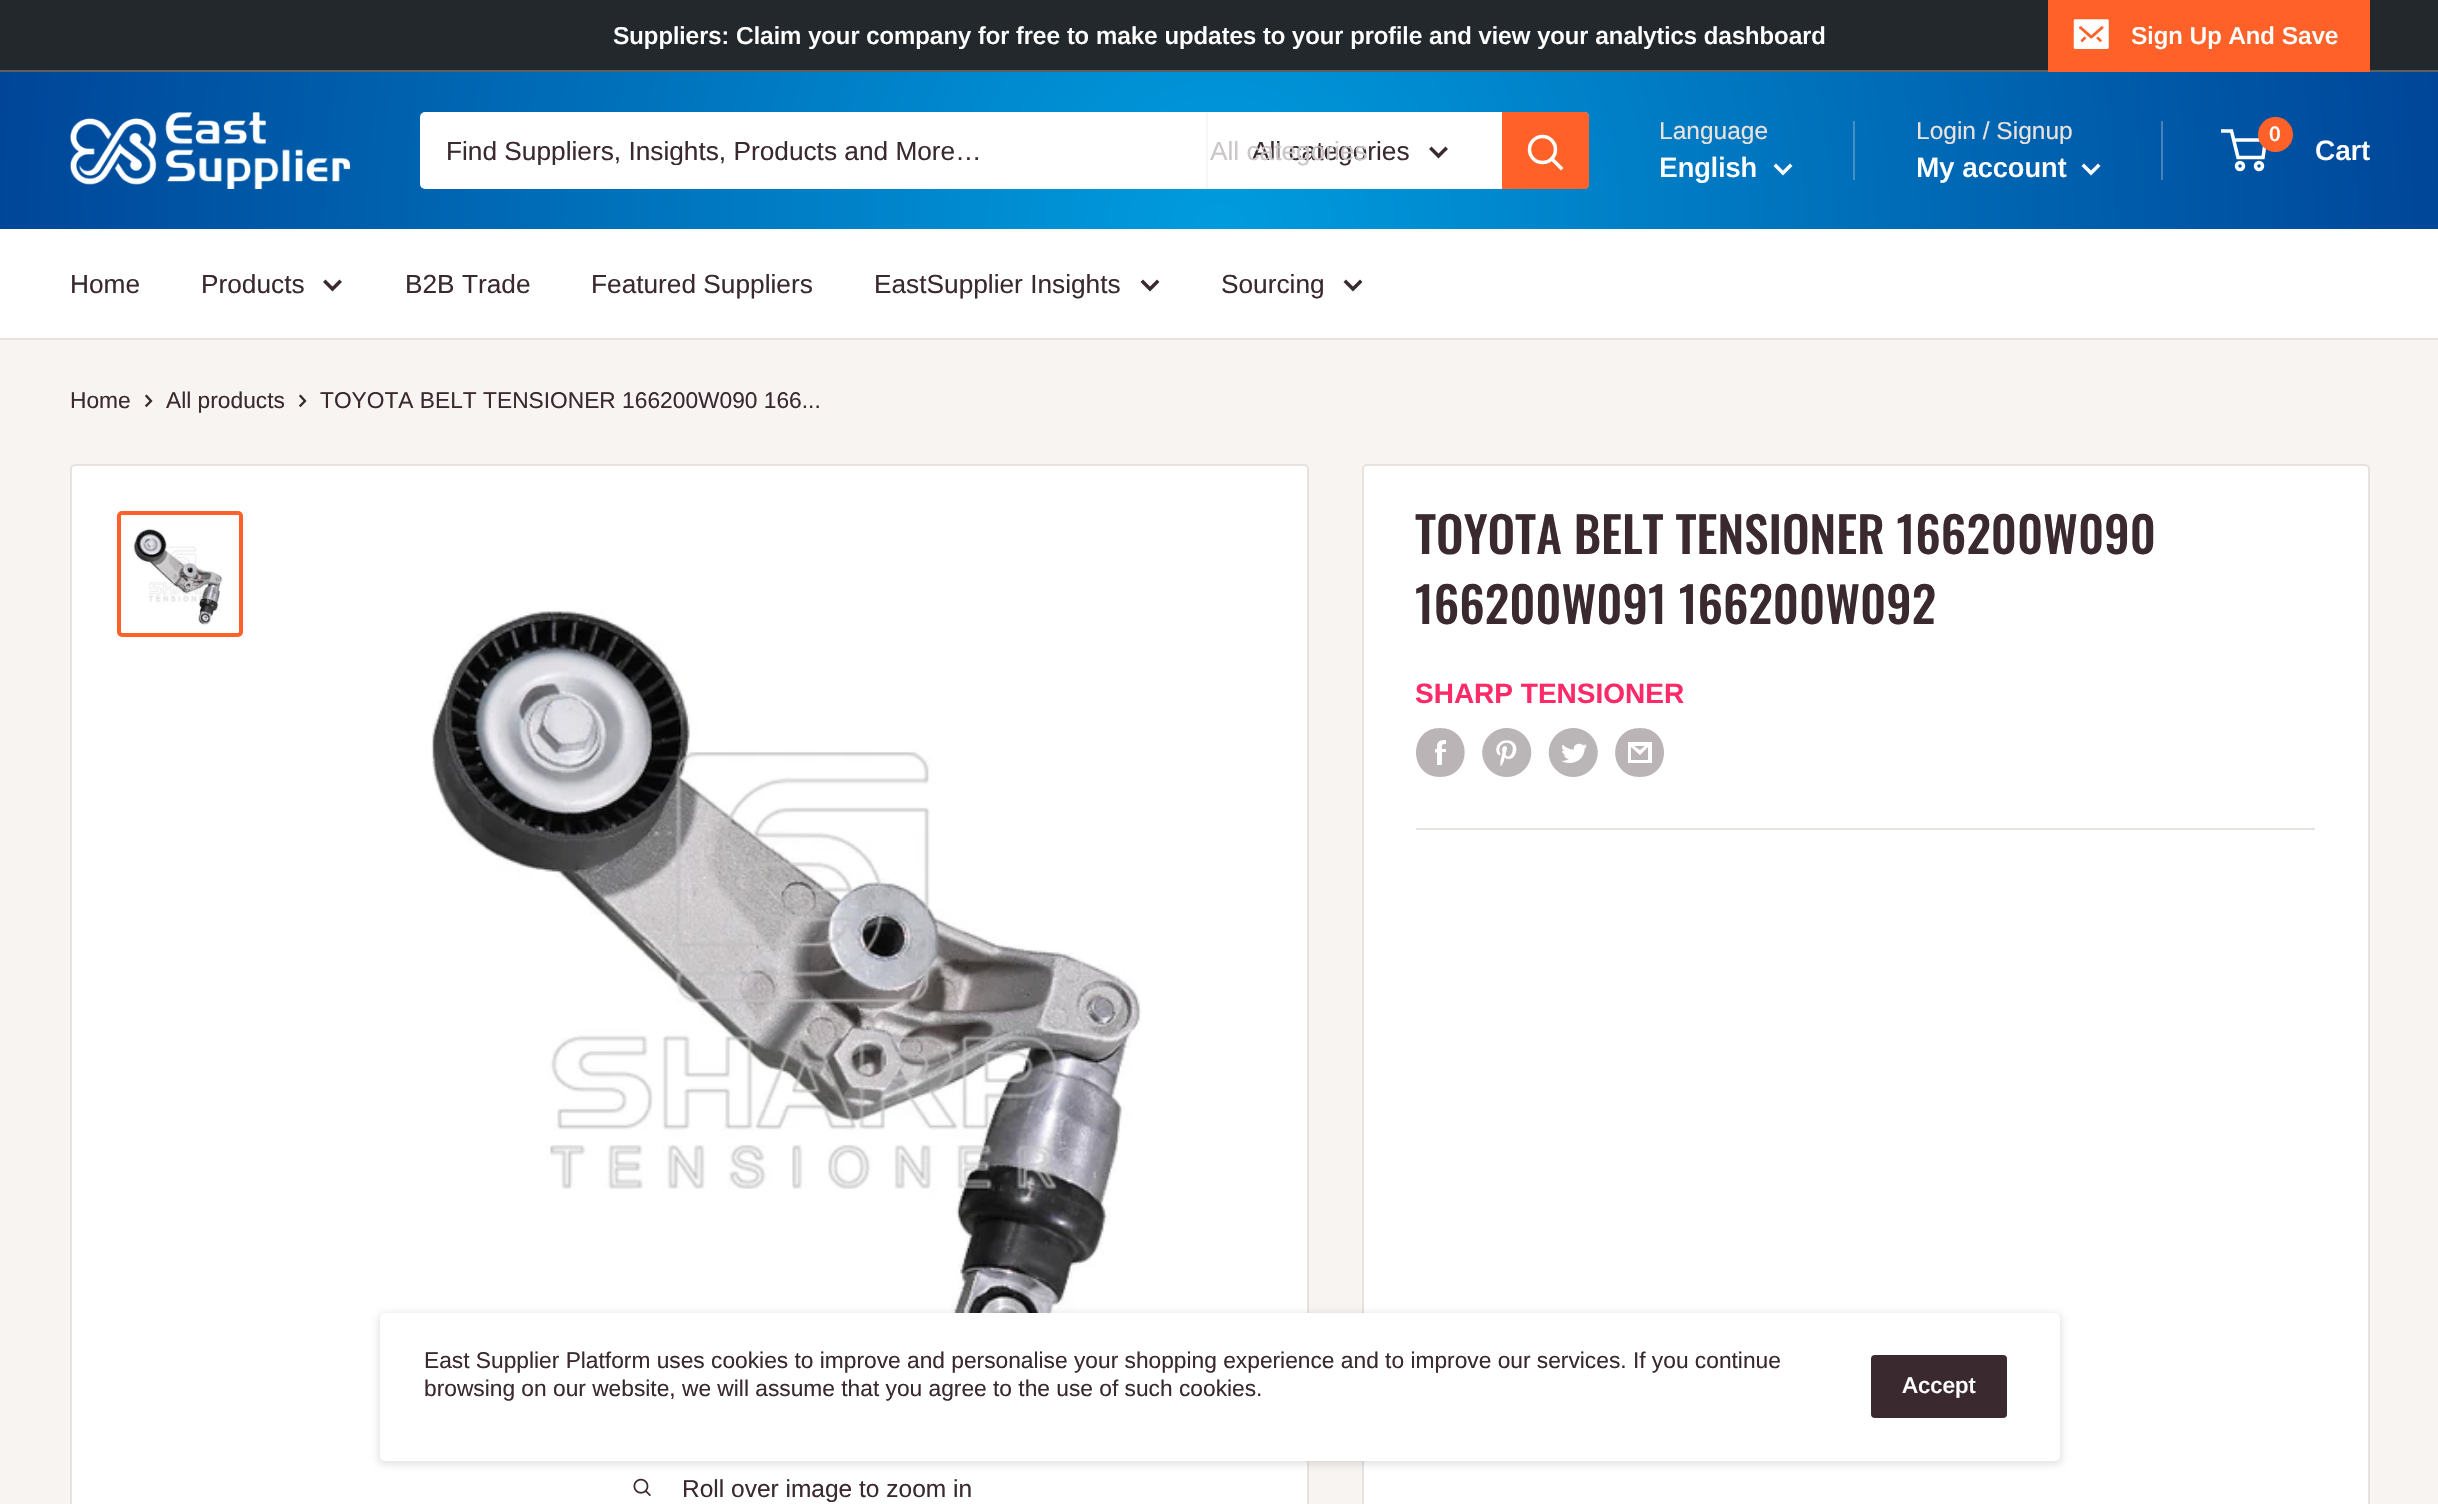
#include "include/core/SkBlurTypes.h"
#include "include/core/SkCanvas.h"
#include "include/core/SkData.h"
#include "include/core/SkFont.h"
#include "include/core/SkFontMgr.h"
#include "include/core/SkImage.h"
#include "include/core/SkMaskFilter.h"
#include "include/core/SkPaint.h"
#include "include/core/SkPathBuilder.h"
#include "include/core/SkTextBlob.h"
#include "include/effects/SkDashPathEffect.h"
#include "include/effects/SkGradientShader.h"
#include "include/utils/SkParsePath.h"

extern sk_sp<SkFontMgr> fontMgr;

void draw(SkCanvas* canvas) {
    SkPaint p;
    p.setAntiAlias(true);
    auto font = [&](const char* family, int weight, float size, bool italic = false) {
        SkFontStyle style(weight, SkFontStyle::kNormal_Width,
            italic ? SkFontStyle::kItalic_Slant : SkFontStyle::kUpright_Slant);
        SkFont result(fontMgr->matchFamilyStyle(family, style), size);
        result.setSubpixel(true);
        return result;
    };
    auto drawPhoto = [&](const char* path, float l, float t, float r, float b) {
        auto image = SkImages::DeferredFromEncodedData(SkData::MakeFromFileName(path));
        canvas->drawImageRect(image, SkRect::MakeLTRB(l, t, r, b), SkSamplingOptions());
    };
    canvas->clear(0xFFF7F4F2);
    p.setColor(0xFF23282D);
    canvas->drawRect(SkRect::MakeLTRB(0, 0, 2438, 70), p);
    p.setColor(0xFF5E6062);
    canvas->drawRect(SkRect::MakeLTRB(0, 70, 2438, 72), p);
    auto font1 = font("Arimo", 600, 24.5f);
    p.setColor(0xFFFFFFFF);
    canvas->drawString("Suppliers: Claim your company for free to make updates to your profile and view your analytics dashboard", 613, 44, font1, p);
    p.setColor(0xFFFF6128);
    canvas->drawPath(SkPathBuilder().moveTo(2048, 70).lineTo(2048, 72).lineTo(2370, 72).lineTo(2370, 2).lineTo(2370, 70).close().detach(), p);
    canvas->drawRect(SkRect::MakeLTRB(2048, 0, 2370, 70), p);
    drawPhoto("media/1.png", 2073, 19, 2109, 49);
    p.setColor(0xFFFFFFFF);
    canvas->drawString("Sign Up And Save", 2131, 44, font1, p);
    {
        const SkColor colors[] = {0xFF009CDE, 0xFF003087};
        const float stops[] = {0, 1};
        p.setShader(SkGradientShader::MakeRadial({1220, 229}, 1525, colors, stops, 2, SkTileMode::kClamp));
        p.setAlpha(255);
    }
    canvas->drawRect(SkRect::MakeLTRB(0, 72, 2438, 229), p);
    drawPhoto("media/2.png", 70, 112, 350, 189);
    p.setShader(nullptr);
    p.setColor(0xFFFFFFFF);
    canvas->drawRoundRect(SkRect::MakeLTRB(420, 112, 1589, 189), 5, 5, p);
    canvas->save();
    canvas->clipRect(SkRect::MakeLTRB(446, 135, 1180, 165));
    auto font2 = font("Arimo", 400, 26.25f);
    p.setColor(0xFF3A2A2F);
    canvas->drawString("Find Suppliers, Insights, Products and More…", 446, 160, font2, p);
    canvas->restore();
    p.setColor(0xFFF8F6F5);
    canvas->drawRect(SkRect::MakeLTRB(1206, 112, 1208, 189), p);
    p.setColor(0xFF3A2A2F);
    canvas->drawString("All categories", 1252, 160, font2, p);
    p.setColor(0xFFCBC6C8);
    canvas->drawString("All categories", 1210, 160, font2, p);
    p.setStyle(SkPaint::kStroke_Style);
    p.setStrokeWidth(3.5f);
    p.setStrokeCap(SkPaint::kSquare_Cap);
    p.setColor(0xFF3A2A2F);
    canvas->drawPath(SkPathBuilder().moveTo(1445.5f, 149).lineTo(1438.5f, 156).lineTo(1431.5f, 149).detach(), p);
    p.setStyle(SkPaint::kFill_Style);
    p.setColor(0xFFFF6128);
    canvas->drawPath(SkPathBuilder().moveTo(1502, 112).lineTo(1584, 112).cubicTo(1587, 112, 1589, 114, 1589, 117).lineTo(1589, 184).cubicTo(1589, 187, 1587, 189, 1584, 189).lineTo(1502, 189).close().detach(), p);
    p.setStyle(SkPaint::kStroke_Style);
    p.setColor(0xFFFFFFFF);
    canvas->drawPath(SkPathBuilder().moveTo(1561, 168).lineTo(1552, 159).detach(), p);
    p.setStrokeCap(SkPaint::kButt_Cap);
    canvas->drawCircle(1542.5f, 149.5f, 13, p);
    auto font3 = font("Arimo", 400, 24.5f);
    p.setStyle(SkPaint::kFill_Style);
    p.setColor(0xFFE9E2DD);
    canvas->drawString("Language", 1659, 139, font3, p);
    auto font4 = font("Arimo", 600, 28);
    p.setColor(0xFFFFFFFF);
    canvas->drawString("English", 1659, 177, font4, p);
    p.setStyle(SkPaint::kStroke_Style);
    p.setStrokeCap(SkPaint::kSquare_Cap);
    canvas->drawPath(SkPathBuilder().moveTo(1790, 166).lineTo(1783, 173).lineTo(1776, 166).detach(), p);
    p.setStyle(SkPaint::kFill_Style);
    p.setColor(0xFF4691C4);
    canvas->drawRect(SkRect::MakeLTRB(1853, 121, 1855, 180), p);
    p.setColor(0xFFE9E2DD);
    canvas->drawString("Login / Signup", 1916, 139, font3, p);
    p.setColor(0xFF4682B8);
    canvas->drawRect(SkRect::MakeLTRB(2161, 121, 2163, 180), p);
    p.setColor(0xFFFFFFFF);
    canvas->drawString("My account", 1916, 177, font4, p);
    p.setStyle(SkPaint::kStroke_Style);
    canvas->drawPath(SkPathBuilder().moveTo(2098, 166).lineTo(2091, 173).lineTo(2084, 166).detach(), p);
    p.setStrokeCap(SkPaint::kButt_Cap);
    canvas->drawCircle(2240, 166, 3.5f, p);
    canvas->drawCircle(2259, 166, 3.5f, p);
    canvas->drawPath(SkPathBuilder().moveTo(2233.5f, 140).lineTo(2265.5f, 140).lineTo(2263, 157.5f).lineTo(2238, 157.5f).lineTo(2231.5f, 131).lineTo(2221, 131).detach(), p);
    p.setStyle(SkPaint::kFill_Style);
    p.setColor(0xFFFF6128);
    canvas->drawCircle(2275.5f, 134.5f, 17.5f, p);
    auto font5 = font("Arimo", 600, 21);
    p.setColor(0xFFFFFFFF);
    canvas->drawString("0", 2269, 141, font5, p);
    canvas->drawString("Cart", 2315, 160, font4, p);
    canvas->drawRect(SkRect::MakeLTRB(0, 229, 2438, 338), p);
    p.setColor(0xFFE7E2DE);
    canvas->drawRect(SkRect::MakeLTRB(0, 338, 2438, 340), p);
    p.setColor(0xFF3A2A2F);
    canvas->drawString("Home", 70, 293, font2, p);
    canvas->drawString("Products", 201, 293, font2, p);
    p.setStyle(SkPaint::kStroke_Style);
    p.setStrokeCap(SkPaint::kSquare_Cap);
    canvas->drawPath(SkPathBuilder().moveTo(339.5f, 282).lineTo(332.5f, 289).lineTo(325.5f, 282).detach(), p);
    p.setStyle(SkPaint::kFill_Style);
    {
        const struct { const char* s; float x, y; } items[] = {
            {"B2B Trade", 405, 293},
            {"Featured Suppliers", 591, 293},
            {"EastSupplier Insights", 874, 293},
        };
        for (auto [s, x, y] : items) {
            canvas->drawString(s, x, y, font2, p);
        }
    }
    p.setStyle(SkPaint::kStroke_Style);
    canvas->drawPath(SkPathBuilder().moveTo(1157, 282).lineTo(1150, 289).lineTo(1143, 282).detach(), p);
    p.setStyle(SkPaint::kFill_Style);
    canvas->drawString("Sourcing", 1221, 293, font2, p);
    p.setStyle(SkPaint::kStroke_Style);
    canvas->drawPath(SkPathBuilder().moveTo(1360, 282).lineTo(1353, 289).lineTo(1346, 282).detach(), p);
    auto font6 = font("Arimo", 400, 22.75f);
    p.setStyle(SkPaint::kFill_Style);
    canvas->drawString("Home", 70, 408, font6, p);
    p.setStyle(SkPaint::kStroke_Style);
    p.setStrokeWidth(2.3f);
    canvas->drawPath(SkPathBuilder().moveTo(146.5f, 396).lineTo(151, 401).lineTo(146.5f, 405.5f).detach(), p);
    p.setStyle(SkPaint::kFill_Style);
    canvas->drawString("All products", 166, 408, font6, p);
    p.setStyle(SkPaint::kStroke_Style);
    canvas->drawPath(SkPathBuilder().moveTo(300.5f, 396).lineTo(305, 401).lineTo(300.5f, 405.5f).detach(), p);
    p.setStyle(SkPaint::kFill_Style);
    canvas->drawString("TOYOTA BELT TENSIONER 166200W090 166...", 320, 408, font6, p);
    p.setColor(0xFFFFFFFF);
    canvas->drawRoundRect(SkRect::MakeLTRB(1363, 465, 2369, 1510), 4, 4, p);
    p.setStyle(SkPaint::kStroke_Style);
    p.setStrokeWidth(2);
    p.setStrokeCap(SkPaint::kButt_Cap);
    p.setColor(0xFFE7E2DE);
    canvas->drawRoundRect(SkRect::MakeLTRB(1363, 465, 2369, 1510), 4, 4, p);
    auto font7 = font("Oswald", 500, 49);
    p.setStyle(SkPaint::kFill_Style);
    p.setColor(0xFF3A2A2F);
    canvas->drawString("TOYOTA BELT TENSIONER 166200W090", 1415, 554, font7, p);
    canvas->drawString("166200W091 166200W092", 1415, 624, font7, p);
    auto font8 = font("Arimo", 700, 28);
    p.setColor(0xFFFC2A68);
    canvas->drawString("SHARP TENSIONER", 1415, 703, font8, p);
    p.setColor(0xFFBAB4B6);
    canvas->drawPath(SkPathBuilder(SkPathFillType::kEvenOdd).moveTo(1440, 777).cubicTo(1408, 777, 1408, 728, 1440, 728).cubicTo(1473, 728, 1473, 777, 1440, 777).close().moveTo(1446, 749).lineTo(1442, 749).cubicTo(1442, 745, 1441, 744, 1446, 744).lineTo(1446, 740).cubicTo(1438, 740, 1437, 742, 1437, 749).lineTo(1435, 749).lineTo(1435, 753).lineTo(1437, 752).lineTo(1437, 765).lineTo(1442, 765).lineTo(1442, 752).lineTo(1446, 752).close().detach(), p);
    drawPhoto("media/3.png", 1482, 728, 1532, 777);
    drawPhoto("media/4.png", 1548, 728, 1598, 777);
    canvas->drawPath(SkPathBuilder().moveTo(1640, 777).cubicTo(1607, 777, 1607, 728, 1640, 728).cubicTo(1672, 728, 1672, 777, 1640, 777).close().moveTo(1634, 746).lineTo(1645, 746).lineTo(1640, 750).close().moveTo(1648, 747).lineTo(1648, 760).lineTo(1631, 760).lineTo(1631, 747).lineTo(1640, 755).close().moveTo(1652, 742).lineTo(1628, 742).lineTo(1628, 763).lineTo(1652, 763).close().detach(), p);
    p.setColor(0xFFE7E2DE);
    canvas->drawRect(SkRect::MakeLTRB(1416, 828, 2315, 830), p);
    p.setColor(0xFFFFFFFF);
    canvas->drawRoundRect(SkRect::MakeLTRB(71, 465, 1308, 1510), 4, 4, p);
    p.setStyle(SkPaint::kStroke_Style);
    p.setColor(0xFFE7E2DE);
    canvas->drawRoundRect(SkRect::MakeLTRB(71, 465, 1308, 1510), 4, 4, p);
    p.setStrokeWidth(4);
    p.setColor(0xFFFF6128);
    canvas->drawRoundRect(SkRect::MakeLTRB(119, 513, 241, 635), 3, 3, p);
    drawPhoto("media/5.png", 131, 528, 223, 625);
    drawPhoto("media/6.png", 431, 610, 1142, 1313);
    drawPhoto("media/7.png", 633, 1478, 651, 1497);
    p.setStyle(SkPaint::kFill_Style);
    p.setColor(0xFF3A2A2F);
    canvas->drawString("Roll over image to zoom in", 682, 1497, font3, p);
    p.setColor(0x1A000000);
    p.setMaskFilter(SkMaskFilter::MakeBlur(kNormal_SkBlurStyle, 3.5f));
    canvas->drawRoundRect(SkRect::MakeLTRB(378, 1313, 2062, 1465), 7, 7, p);
    p.setMaskFilter(nullptr);
    p.setColor(0xFFFFFFFF);
    canvas->drawRoundRect(SkRect::MakeLTRB(380, 1313, 2060, 1461), 5, 5, p);
    p.setColor(0xFF3A2A2F);
    canvas->drawString("East Supplier Platform uses cookies to improve and personalise your shopping experience and to improve our services. If you continue", 424, 1368, font6, p);
    canvas->drawString("browsing on our website, we will assume that you agree to the use of such cookies.", 424, 1396, font6, p);
    canvas->drawRoundRect(SkRect::MakeLTRB(1871, 1355, 2007, 1418), 4, 4, p);
    auto font9 = font("Arimo", 600, 22.75f);
    p.setColor(0xFFFFFFFF);
    canvas->drawString("Accept", 1902, 1393, font9, p);
}
